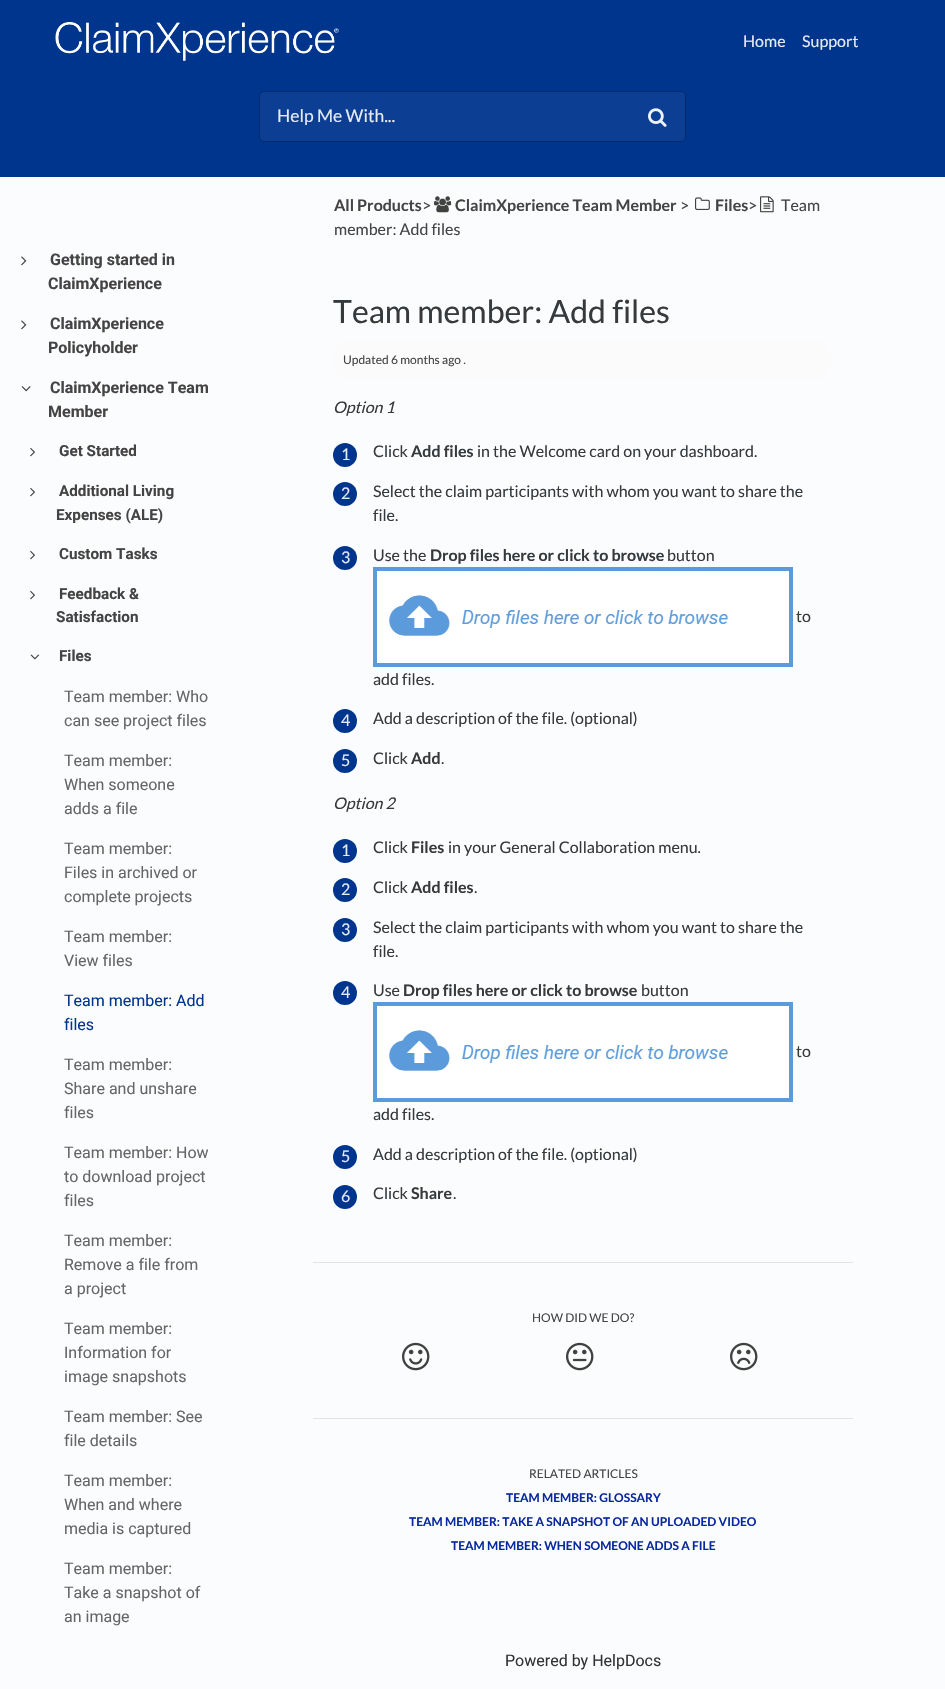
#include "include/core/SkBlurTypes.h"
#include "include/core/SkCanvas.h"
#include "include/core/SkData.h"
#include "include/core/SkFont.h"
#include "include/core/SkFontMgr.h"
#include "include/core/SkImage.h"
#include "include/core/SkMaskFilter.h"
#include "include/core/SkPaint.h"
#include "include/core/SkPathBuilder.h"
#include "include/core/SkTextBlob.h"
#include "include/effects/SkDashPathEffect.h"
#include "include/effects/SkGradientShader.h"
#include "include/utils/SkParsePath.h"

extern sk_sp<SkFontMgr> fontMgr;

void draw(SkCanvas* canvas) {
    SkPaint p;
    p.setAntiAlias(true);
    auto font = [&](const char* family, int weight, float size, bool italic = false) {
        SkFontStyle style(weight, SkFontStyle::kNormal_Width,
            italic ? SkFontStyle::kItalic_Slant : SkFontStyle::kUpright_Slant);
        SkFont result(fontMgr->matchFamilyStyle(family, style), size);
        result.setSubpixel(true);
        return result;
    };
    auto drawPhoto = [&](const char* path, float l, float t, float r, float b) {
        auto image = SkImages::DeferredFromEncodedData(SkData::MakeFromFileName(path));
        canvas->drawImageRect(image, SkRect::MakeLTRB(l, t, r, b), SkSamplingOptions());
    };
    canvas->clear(0xFFFBFCFE);
    p.setColor(0xFF00358E);
    canvas->drawRect(SkRect::MakeLTRB(0, 0, 945, 177), p);
    drawPhoto("media/1.png", 55, 22, 339, 61);
    auto font1 = font("Lato", 400, 16);
    p.setColor(0xFFE5EAF3);
    canvas->drawString("Home", 743, 47, font1, p);
    canvas->drawString("Support", 802, 47, font1, p);
    p.setColor(0xFF0C3F93);
    canvas->drawRoundRect(SkRect::MakeLTRB(259.5f, 91.5f, 685.5f, 141.5f), 4.5f, 4.5f, p);
    p.setStyle(SkPaint::kStroke_Style);
    p.setStrokeWidth(1);
    p.setColor(0xFF00296E);
    canvas->drawRoundRect(SkRect::MakeLTRB(259.5f, 91.5f, 685.5f, 141.5f), 4.5f, 4.5f, p);
    auto font2 = font("Lato", 400, 17.5f);
    p.setStyle(SkPaint::kFill_Style);
    p.setColor(0xFFE5EAF3);
    canvas->drawString("Help Me With...", 277, 122, font2, p);
    drawPhoto("media/2.png", 648, 108, 667, 127);
    drawPhoto("media/3.png", 21, 256, 27, 266);
    auto font3 = font("Roboto", 700, 16);
    p.setColor(0xFF444444);
    canvas->drawString("Getting started in", 50, 265, font3, p);
    canvas->drawString("ClaimXperience", 48, 289, font3, p);
    drawPhoto("media/3.png", 21, 320, 27, 330);
    canvas->drawString("ClaimXperience", 50, 329, font3, p);
    canvas->drawString("Policyholder", 48, 353, font3, p);
    drawPhoto("media/4.png", 21, 386, 31, 392);
    canvas->drawString("ClaimXperience Team", 50, 393, font3, p);
    canvas->drawString("Member", 48, 417, font3, p);
    drawPhoto("media/5.png", 30, 447, 35, 457);
    auto font4 = font("Roboto", 700, 15.25f);
    canvas->drawString("Get Started", 59, 456, font4, p);
    drawPhoto("media/5.png", 30, 487, 35, 497);
    canvas->drawString("Additional Living", 59, 496, font4, p);
    canvas->drawString("Expenses (ALE)", 56, 520, font4, p);
    drawPhoto("media/5.png", 30, 550, 35, 560);
    canvas->drawString("Custom Tasks", 59, 559, font4, p);
    drawPhoto("media/5.png", 30, 590, 35, 600);
    canvas->drawString("Feedback &", 59, 599, font4, p);
    canvas->drawString("Satisfaction", 56, 622, font4, p);
    drawPhoto("media/6.png", 30, 654, 40, 660);
    canvas->drawString("Files", 59, 661, font4, p);
    auto font5 = font("Roboto", 400, 16);
    p.setColor(0xFF666666);
    {
        const struct { const char* s; float x, y; } items[] = {
            {"Team member: Who", 64, 702},
            {"can see project files", 64, 726},
            {"Team member:", 64, 766},
            {"When someone", 64, 790},
            {"adds a file", 64, 814},
            {"Team member:", 64, 854},
            {"Files in archived or", 64, 878},
            {"complete projects", 64, 902},
            {"Team member:", 64, 942},
            {"View files", 64, 966},
        };
        for (auto [s, x, y] : items) {
            canvas->drawString(s, x, y, font5, p);
        }
    }
    p.setColor(0xFF00358E);
    canvas->drawString("Team member: Add", 64, 1006, font5, p);
    canvas->drawString("files", 64, 1030, font5, p);
    p.setColor(0xFF666666);
    {
        const struct { const char* s; float x, y; } items[] = {
            {"Team member:", 64, 1070},
            {"Share and unshare", 64, 1094},
            {"files", 64, 1118},
            {"Team member: How", 64, 1158},
            {"to download project", 64, 1182},
            {"files", 64, 1206},
            {"Team member:", 64, 1246},
            {"Remove a file from", 64, 1270},
            {"a project", 64, 1294},
            {"Team member:", 64, 1334},
            {"Information for", 64, 1358},
            {"image snapshots", 64, 1382},
            {"Team member: See", 64, 1422},
            {"file details", 64, 1446},
            {"Team member:", 64, 1486},
            {"When and where", 64, 1510},
            {"media is captured", 64, 1534},
            {"Team member:", 64, 1574},
            {"Take a snapshot of", 64, 1598},
            {"an image", 64, 1622},
        };
        for (auto [s, x, y] : items) {
            canvas->drawString(s, x, y, font5, p);
        }
    }
    auto font6 = font("Lato", 700, 16);
    p.setColor(0xFF444444);
    canvas->drawString("All Products", 334, 211, font6, p);
    canvas->drawString(">", 422, 211, font1, p);
    drawPhoto("media/7.png", 434, 196, 452, 213);
    canvas->drawString("ClaimXperience Team Member", 455, 211, font6, p);
    canvas->drawString(">", 680, 211, font1, p);
    drawPhoto("media/8.png", 695, 197, 710, 210);
    canvas->drawString("Files", 715, 211, font6, p);
    canvas->drawString(">", 748, 211, font1, p);
    drawPhoto("media/9.png", 760, 196, 774, 213);
    canvas->drawString("Team", 781, 211, font1, p);
    canvas->drawString("member: Add files", 334, 235, font1, p);
    auto font7 = font("Lato", 400, 32);
    p.setColor(0xFF373A3C);
    canvas->drawString("Team member: Add files", 333, 323, font7, p);
    p.setColor(0xFFFBFBFB);
    canvas->drawRoundRect(SkRect::MakeLTRB(333, 341, 833, 379), 19, 19, p);
    auto font8 = font("Lato", 400, 12);
    p.setColor(0xFF444444);
    canvas->drawString("Updated 6 months ago .", 343, 364, font8, p);
    auto font9 = font("Lato", 400, 16, true);
    p.setColor(0xFF373A3C);
    canvas->drawString("Option 1", 333, 413, font9, p);
    p.setColor(0xFF00358E);
    canvas->drawCircle(345, 455, 12, p);
    p.setColor(0xFFE5EAF3);
    canvas->drawString("1", 341, 460, font1, p);
    p.setColor(0xFF373A3C);
    canvas->drawString("Click", 373, 457, font1, p);
    canvas->drawString("Add files", 411, 457, font6, p);
    canvas->drawString("in the Welcome card on your dashboard.", 477, 457, font1, p);
    p.setColor(0xFF00358E);
    canvas->drawCircle(345, 494, 12, p);
    p.setColor(0xFFE5EAF3);
    canvas->drawString("2", 341, 499, font1, p);
    p.setColor(0xFF373A3C);
    canvas->drawString("Select the claim participants with whom you want to share the", 373, 497, font1, p);
    canvas->drawString("file.", 373, 521, font1, p);
    p.setColor(0xFF00358E);
    canvas->drawCircle(345, 558, 12, p);
    p.setColor(0xFFE5EAF3);
    canvas->drawString("3", 341, 563, font1, p);
    p.setColor(0xFF373A3C);
    canvas->drawString("Use the", 373, 561, font1, p);
    canvas->drawString("Drop files here or click to browse", 430, 561, font6, p);
    canvas->drawString("button", 667, 561, font1, p);
    drawPhoto("media/10.png", 373, 567, 793, 667);
    canvas->drawString("to", 796, 622, font1, p);
    canvas->drawString("add files.", 373, 685, font1, p);
    p.setColor(0xFF00358E);
    canvas->drawCircle(345, 721, 12, p);
    p.setColor(0xFFE5EAF3);
    canvas->drawString("4", 341, 726, font1, p);
    p.setColor(0xFF373A3C);
    canvas->drawString("Add a description of the file. (optional)", 373, 724, font1, p);
    p.setColor(0xFF00358E);
    canvas->drawCircle(345, 761, 12, p);
    p.setColor(0xFFE5EAF3);
    canvas->drawString("5", 341, 766, font1, p);
    p.setColor(0xFF373A3C);
    canvas->drawString("Click", 373, 764, font1, p);
    canvas->drawString("Add", 411, 764, font6, p);
    canvas->drawString(".", 441, 764, font1, p);
    canvas->drawString("Option 2", 333, 809, font9, p);
    p.setColor(0xFF00358E);
    canvas->drawCircle(345, 851, 12, p);
    p.setColor(0xFFE5EAF3);
    canvas->drawString("1", 341, 856, font1, p);
    p.setColor(0xFF373A3C);
    canvas->drawString("Click", 373, 853, font1, p);
    canvas->drawString("Files", 411, 853, font6, p);
    canvas->drawString("in your General Collaboration menu.", 448, 853, font1, p);
    p.setColor(0xFF00358E);
    canvas->drawCircle(345, 890, 12, p);
    p.setColor(0xFFE5EAF3);
    canvas->drawString("2", 341, 895, font1, p);
    p.setColor(0xFF373A3C);
    canvas->drawString("Click", 373, 893, font1, p);
    canvas->drawString("Add files", 411, 893, font6, p);
    canvas->drawString(".", 474, 893, font1, p);
    p.setColor(0xFF00358E);
    canvas->drawCircle(345, 930, 12, p);
    p.setColor(0xFFE5EAF3);
    canvas->drawString("3", 341, 935, font1, p);
    p.setColor(0xFF373A3C);
    canvas->drawString("Select the claim participants with whom you want to share the", 373, 933, font1, p);
    canvas->drawString("file.", 373, 957, font1, p);
    p.setColor(0xFF00358E);
    canvas->drawCircle(345, 993, 12, p);
    p.setColor(0xFFE5EAF3);
    canvas->drawString("4", 341, 998, font1, p);
    p.setColor(0xFF373A3C);
    canvas->drawString("Use", 373, 996, font1, p);
    canvas->drawString("Drop files here or click to browse", 403, 996, font6, p);
    canvas->drawString("button", 641, 996, font1, p);
    drawPhoto("media/10.png", 373, 1002, 793, 1102);
    canvas->drawString("to", 796, 1057, font1, p);
    canvas->drawString("add files.", 373, 1120, font1, p);
    p.setColor(0xFF00358E);
    canvas->drawCircle(345, 1157, 12, p);
    p.setColor(0xFFE5EAF3);
    canvas->drawString("5", 341, 1162, font1, p);
    p.setColor(0xFF373A3C);
    canvas->drawString("Add a description of the file. (optional)", 373, 1160, font1, p);
    p.setColor(0xFF00358E);
    canvas->drawCircle(345, 1197, 12, p);
    p.setColor(0xFFE5EAF3);
    canvas->drawString("6", 341, 1202, font1, p);
    p.setColor(0xFF373A3C);
    canvas->drawString("Click", 373, 1199, font1, p);
    canvas->drawString("Share", 411, 1199, font6, p);
    canvas->drawString(".", 453, 1199, font1, p);
    p.setColor(0xFFE2E3E5);
    canvas->drawRect(SkRect::MakeLTRB(313, 1262, 853, 1263), p);
    p.setColor(0xFF444444);
    canvas->drawString("HOW DID WE DO?", 532, 1322, font8, p);
    drawPhoto("media/11.png", 402, 1342, 430, 1371);
    drawPhoto("media/12.png", 566, 1342, 594, 1371);
    drawPhoto("media/13.png", 730, 1342, 758, 1371);
    p.setColor(0xFFE2E3E5);
    canvas->drawRect(SkRect::MakeLTRB(313, 1418, 853, 1419), p);
    p.setColor(0xFF444444);
    canvas->drawString("RELATED ARTICLES", 529, 1478, font8, p);
    auto font10 = font("Lato", 700, 12);
    p.setColor(0xFF08289F);
    {
        const struct { const char* s; float x, y; } items[] = {
            {"TEAM MEMBER: GLOSSARY", 506, 1502},
            {"TEAM MEMBER: TAKE A SNAPSHOT OF AN UPLOADED VIDEO", 409, 1526},
            {"TEAM MEMBER: WHEN SOMEONE ADDS A FILE", 451, 1550},
        };
        for (auto [s, x, y] : items) {
            canvas->drawString(s, x, y, font10, p);
        }
    }
    p.setColor(0xFF333333);
    canvas->drawString("Powered by HelpDocs", 505, 1666, font5, p);
}
